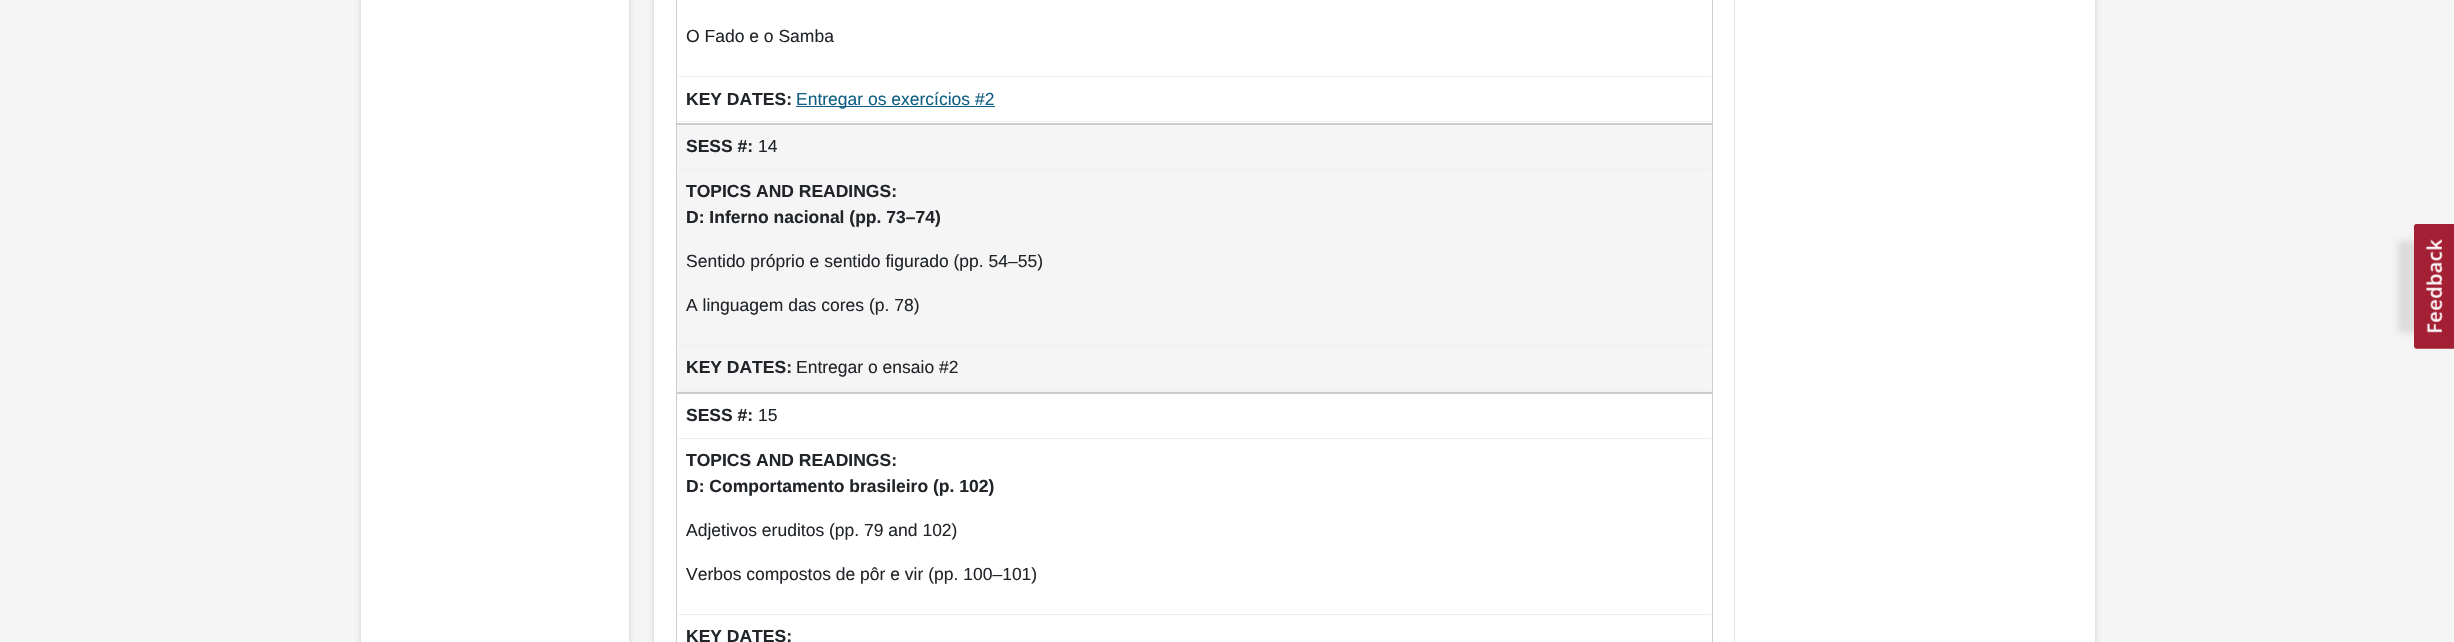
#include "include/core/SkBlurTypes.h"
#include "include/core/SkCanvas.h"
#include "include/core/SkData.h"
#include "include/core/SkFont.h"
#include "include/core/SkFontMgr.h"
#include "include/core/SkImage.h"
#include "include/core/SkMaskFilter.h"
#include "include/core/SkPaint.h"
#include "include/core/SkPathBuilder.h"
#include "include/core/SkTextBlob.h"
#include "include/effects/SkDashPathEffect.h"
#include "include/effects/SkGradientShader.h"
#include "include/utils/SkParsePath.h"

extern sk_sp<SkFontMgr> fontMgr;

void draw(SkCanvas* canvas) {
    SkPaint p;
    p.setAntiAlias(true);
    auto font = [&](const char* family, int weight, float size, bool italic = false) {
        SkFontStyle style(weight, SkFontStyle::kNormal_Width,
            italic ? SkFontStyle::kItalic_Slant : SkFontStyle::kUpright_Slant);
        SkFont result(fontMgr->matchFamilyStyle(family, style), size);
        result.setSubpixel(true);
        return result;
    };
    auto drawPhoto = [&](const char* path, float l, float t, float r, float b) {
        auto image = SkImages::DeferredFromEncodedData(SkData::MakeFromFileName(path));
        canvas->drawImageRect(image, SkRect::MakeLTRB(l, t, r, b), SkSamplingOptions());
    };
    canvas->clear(0xFFF5F5F5);
    p.setColor(0x29000000);
    p.setMaskFilter(SkMaskFilter::MakeBlur(kNormal_SkBlurStyle, 2.5f));
    canvas->drawRect(SkRect::MakeLTRB(361, -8, 629, 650), p);
    p.setMaskFilter(nullptr);
    p.setColor(0xFFFFFFFF);
    canvas->drawRect(SkRect::MakeLTRB(361, 0, 629, 642), p);
    p.setColor(0x29000000);
    p.setMaskFilter(SkMaskFilter::MakeBlur(kNormal_SkBlurStyle, 2.5f));
    canvas->drawRect(SkRect::MakeLTRB(654, -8, 2095, 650), p);
    p.setMaskFilter(nullptr);
    p.setColor(0xFFFFFFFF);
    canvas->drawRect(SkRect::MakeLTRB(654, 0, 2095, 642), p);
    p.setStyle(SkPaint::kStroke_Style);
    p.setStrokeWidth(1);
    p.setColor(0xFFCCCCCC);
    canvas->drawRect(SkRect::MakeLTRB(676.5f, -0.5f, 1712.5f, 123.5f), p);
    p.setStyle(SkPaint::kFill_Style);
    p.setColor(0xFFEEEEEE);
    canvas->drawRect(SkRect::MakeLTRB(678, 76, 1711, 77), p);
    auto font1 = font("Liberation Sans", 400, 17.5f);
    p.setColor(0xFF212529);
    canvas->drawString("O Fado e o Samba", 686, 42, font1, p);
    p.setColor(0xFFEEEEEE);
    canvas->drawRect(SkRect::MakeLTRB(678, 121, 1711, 122), p);
    auto font2 = font("Liberation Sans", 700, 17.5f);
    p.setColor(0xFF212529);
    canvas->drawString("KEY DATES:", 686, 105, font2, p);
    p.setColor(0xFF115F83);
    canvas->drawRect(SkRect::MakeLTRB(796, 106, 995, 107), p);
    canvas->drawString("Entregar os exercícios #2", 796, 105, font1, p);
    p.setColor(0xFFF5F5F5);
    canvas->drawRect(SkRect::MakeLTRB(676.5f, 124.5f, 1712.5f, 392.5f), p);
    p.setStyle(SkPaint::kStroke_Style);
    p.setColor(0xFFCCCCCC);
    canvas->drawRect(SkRect::MakeLTRB(676.5f, 124.5f, 1712.5f, 392.5f), p);
    p.setStyle(SkPaint::kFill_Style);
    p.setColor(0xFFEEEEEE);
    canvas->drawRect(SkRect::MakeLTRB(678, 169, 1711, 170), p);
    p.setColor(0xFF212529);
    canvas->drawString("SESS #:", 686, 152, font2, p);
    canvas->drawString("14", 758, 152, font1, p);
    p.setColor(0xFFEEEEEE);
    canvas->drawRect(SkRect::MakeLTRB(678, 345, 1711, 346), p);
    p.setColor(0xFF212529);
    canvas->drawString("TOPICS AND READINGS:", 686, 197, font2, p);
    canvas->drawString("D: Inferno nacional (pp. 73–74)", 686, 223, font2, p);
    canvas->drawString("Sentido próprio e sentido figurado (pp. 54–55)", 686, 267, font1, p);
    canvas->drawString("A linguagem das cores (p. 78)", 686, 311, font1, p);
    p.setColor(0xFFEEEEEE);
    canvas->drawRect(SkRect::MakeLTRB(678, 390, 1711, 391), p);
    p.setColor(0xFF212529);
    canvas->drawString("KEY DATES:", 686, 373, font2, p);
    canvas->drawString("Entregar o ensaio #2", 796, 373, font1, p);
    p.setStyle(SkPaint::kStroke_Style);
    p.setColor(0xFFCCCCCC);
    canvas->drawRect(SkRect::MakeLTRB(676.5f, 393.5f, 1712.5f, 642.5f), p);
    p.setStyle(SkPaint::kFill_Style);
    p.setColor(0xFFEEEEEE);
    canvas->drawRect(SkRect::MakeLTRB(678, 438, 1711, 439), p);
    p.setColor(0xFF212529);
    canvas->drawString("SESS #:", 686, 421, font2, p);
    canvas->drawString("15", 758, 421, font1, p);
    p.setColor(0xFFEEEEEE);
    canvas->drawRect(SkRect::MakeLTRB(678, 614, 1711, 615), p);
    p.setColor(0xFF212529);
    canvas->drawString("TOPICS AND READINGS:", 686, 466, font2, p);
    canvas->drawString("D: Comportamento brasileiro (p. 102)", 686, 492, font2, p);
    canvas->drawString("Adjetivos eruditos (pp. 79 and 102)", 686, 536, font1, p);
    canvas->drawString("Verbos compostos de pôr e vir (pp. 100–101)", 686, 580, font1, p);
    canvas->drawString("KEY DATES:", 686, 642, font2, p);
    p.setColor(0xFFDEE2E6);
    canvas->drawRect(SkRect::MakeLTRB(1734, 0, 1735, 642), p);
    p.setColor(0x1A000000);
    p.setMaskFilter(SkMaskFilter::MakeBlur(kNormal_SkBlurStyle, 3));
    canvas->drawRoundRect(SkRect::MakeLTRB(2398, 241, 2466, 333), 2.5f, 2.5f, p);
    p.setMaskFilter(nullptr);
    p.setColor(0xFFEFEFEF);
    canvas->drawPath(SkPathBuilder().moveTo(2414, 346).lineTo(2414, 226).cubicTo(2414, 225, 2415, 224, 2416, 224).lineTo(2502, 224).cubicTo(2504, 224, 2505, 225, 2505, 226).lineTo(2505, 346).cubicTo(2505, 348, 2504, 349, 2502, 349).lineTo(2416, 349).cubicTo(2415, 349, 2414, 348, 2414, 346).close().detach(), p);
    drawPhoto("media/1.png", 2414, 224, 2454, 349);
}
